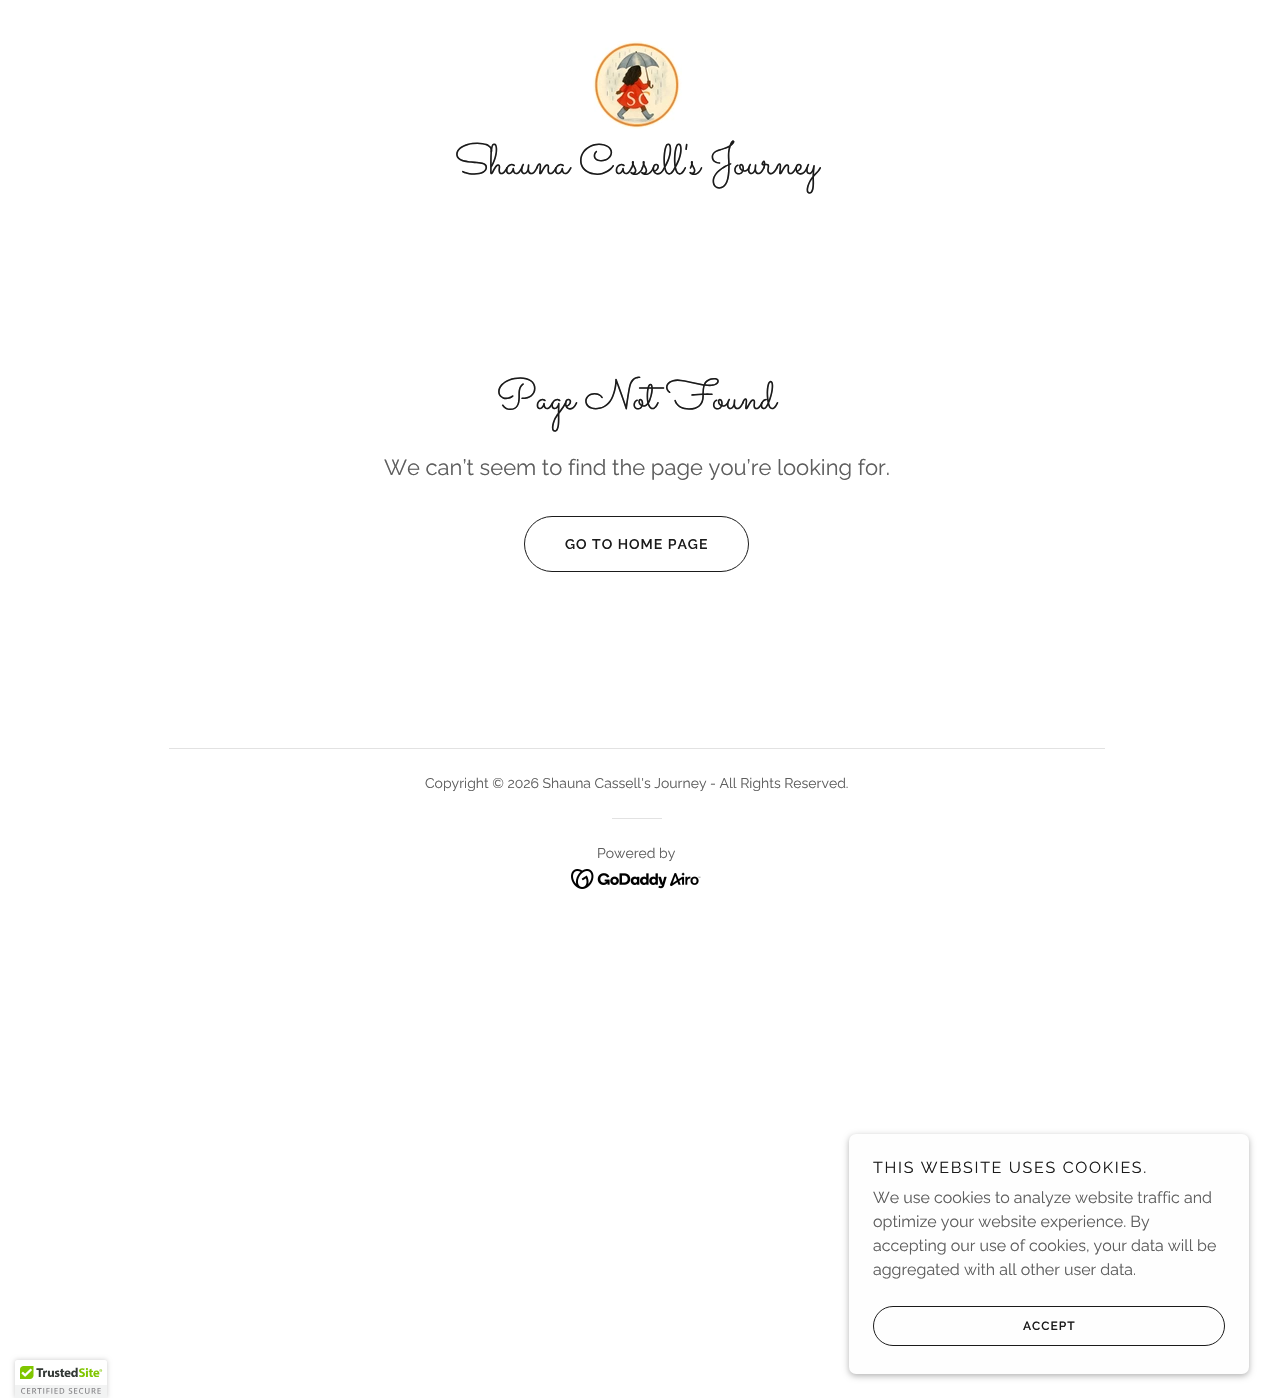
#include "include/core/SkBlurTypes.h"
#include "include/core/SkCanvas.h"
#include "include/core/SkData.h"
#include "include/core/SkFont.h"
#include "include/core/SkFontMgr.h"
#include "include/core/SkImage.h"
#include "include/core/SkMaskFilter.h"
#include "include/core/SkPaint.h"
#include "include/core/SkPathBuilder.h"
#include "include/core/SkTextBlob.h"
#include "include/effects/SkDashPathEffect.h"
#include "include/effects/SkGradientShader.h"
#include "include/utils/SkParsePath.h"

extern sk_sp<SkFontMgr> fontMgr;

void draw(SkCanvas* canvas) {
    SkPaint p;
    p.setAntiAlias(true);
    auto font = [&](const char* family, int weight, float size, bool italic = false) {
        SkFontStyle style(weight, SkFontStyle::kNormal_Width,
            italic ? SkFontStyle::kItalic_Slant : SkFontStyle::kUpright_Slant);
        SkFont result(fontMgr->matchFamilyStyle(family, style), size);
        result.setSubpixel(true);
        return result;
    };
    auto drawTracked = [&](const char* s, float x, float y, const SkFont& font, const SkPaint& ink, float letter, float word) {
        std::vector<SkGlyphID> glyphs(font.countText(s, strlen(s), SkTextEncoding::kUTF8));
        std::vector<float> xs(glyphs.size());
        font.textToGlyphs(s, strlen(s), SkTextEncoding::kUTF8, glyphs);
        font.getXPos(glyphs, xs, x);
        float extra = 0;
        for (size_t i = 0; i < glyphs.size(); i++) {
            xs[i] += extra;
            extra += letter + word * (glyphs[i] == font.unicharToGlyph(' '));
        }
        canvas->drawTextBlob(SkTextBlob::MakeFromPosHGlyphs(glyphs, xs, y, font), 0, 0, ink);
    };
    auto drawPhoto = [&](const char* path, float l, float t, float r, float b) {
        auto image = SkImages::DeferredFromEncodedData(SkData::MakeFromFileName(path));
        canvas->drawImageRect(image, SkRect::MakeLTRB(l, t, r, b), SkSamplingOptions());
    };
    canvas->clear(0xFFFFFFFF);
    drawPhoto("media/1.png", 593, 41, 682, 129);
    auto font1 = font("Sacramento", 400, 43);
    p.setColor(0xFF1B1B1B);
    canvas->drawString("Shauna Cassell's Journey", 454, 174, font1, p);
    canvas->drawString("Page Not Found", 496, 409, font1, p);
    auto font2 = font("Raleway", 400, 22);
    p.setColor(0xFF5E5E5E);
    canvas->drawString("We can’t seem to find the page you’re looking for.", 384, 475, font2, p);
    p.setStyle(SkPaint::kStroke_Style);
    p.setStrokeWidth(1);
    p.setColor(0xFF1B1B1B);
    canvas->drawRoundRect(SkRect::MakeLTRB(524.5f, 516.5f, 748.5f, 571.5f), 27.5f, 27.5f, p);
    auto font3 = font("Raleway", 600, 14);
    p.setStyle(SkPaint::kFill_Style);
    drawTracked("GO TO HOME PAGE", 565, 549, font3, p, 1, 0);
    p.setColor(0xFFE2E2E2);
    canvas->drawRect(SkRect::MakeLTRB(169, 748, 1105, 749), p);
    auto font4 = font("Raleway", 400, 14);
    p.setColor(0xFF5E5E5E);
    canvas->drawString("Copyright © 2026 Shauna Cassell's Journey - All Rights Reserved.", 425, 788, font4, p);
    p.setColor(0xFFE2E2E2);
    canvas->drawRect(SkRect::MakeLTRB(612, 818, 662, 819), p);
    p.setColor(0xFF5E5E5E);
    canvas->drawString("Powered by", 597, 858, font4, p);
    drawPhoto("media/2.png", 571, 869, 701, 889);
    p.setColor(0x4D000000);
    p.setMaskFilter(SkMaskFilter::MakeBlur(kNormal_SkBlurStyle, 3));
    canvas->drawRoundRect(SkRect::MakeLTRB(849, 1136, 1249, 1376), 7, 7, p);
    p.setMaskFilter(nullptr);
    p.setColor(0xFFFEFEFE);
    canvas->drawRoundRect(SkRect::MakeLTRB(849, 1134, 1249, 1374), 7, 7, p);
    auto font5 = font("Raleway", 400, 16);
    p.setColor(0xFF1B1B1B);
    drawTracked("THIS WEBSITE USES COOKIES.", 873, 1173, font5, p, 1.7f, 0);
    p.setColor(0xFF5E5E5E);
    {
        const struct { const char* s; float x, y; } items[] = {
            {"We use cookies to analyze website traffic and", 873, 1203},
            {"optimize your website experience. By", 873, 1227},
            {"accepting our use of cookies, your data will be", 873, 1251},
            {"aggregated with all other user data.", 873, 1275},
        };
        for (auto [s, x, y] : items) {
            canvas->drawString(s, x, y, font5, p);
        }
    }
    p.setStyle(SkPaint::kStroke_Style);
    p.setColor(0xFF1B1B1B);
    canvas->drawRoundRect(SkRect::MakeLTRB(873.5f, 1306.5f, 1224.5f, 1345.5f), 19.5f, 19.5f, p);
    auto font6 = font("Raleway", 600, 12);
    p.setStyle(SkPaint::kFill_Style);
    drawTracked("ACCEPT", 1023, 1330, font6, p, 1, 0);
    p.setColor(0x33000000);
    p.setMaskFilter(SkMaskFilter::MakeBlur(kNormal_SkBlurStyle, 2.5f));
    canvas->drawRoundRect(SkRect::MakeLTRB(15, 1360, 107, 1398), 2, 2, p);
    p.setMaskFilter(nullptr);
    p.setColor(0xFFFFFFFF);
    canvas->drawPath(SkPathBuilder().moveTo(17, 1360).lineTo(105, 1360).cubicTo(106, 1360, 107, 1361, 107, 1362).lineTo(107, 1398).lineTo(15, 1398).lineTo(15, 1362).cubicTo(15, 1361, 16, 1360, 17, 1360).close().detach(), p);
    drawPhoto("media/3.png", 15, 1366, 107, 1398);
}
